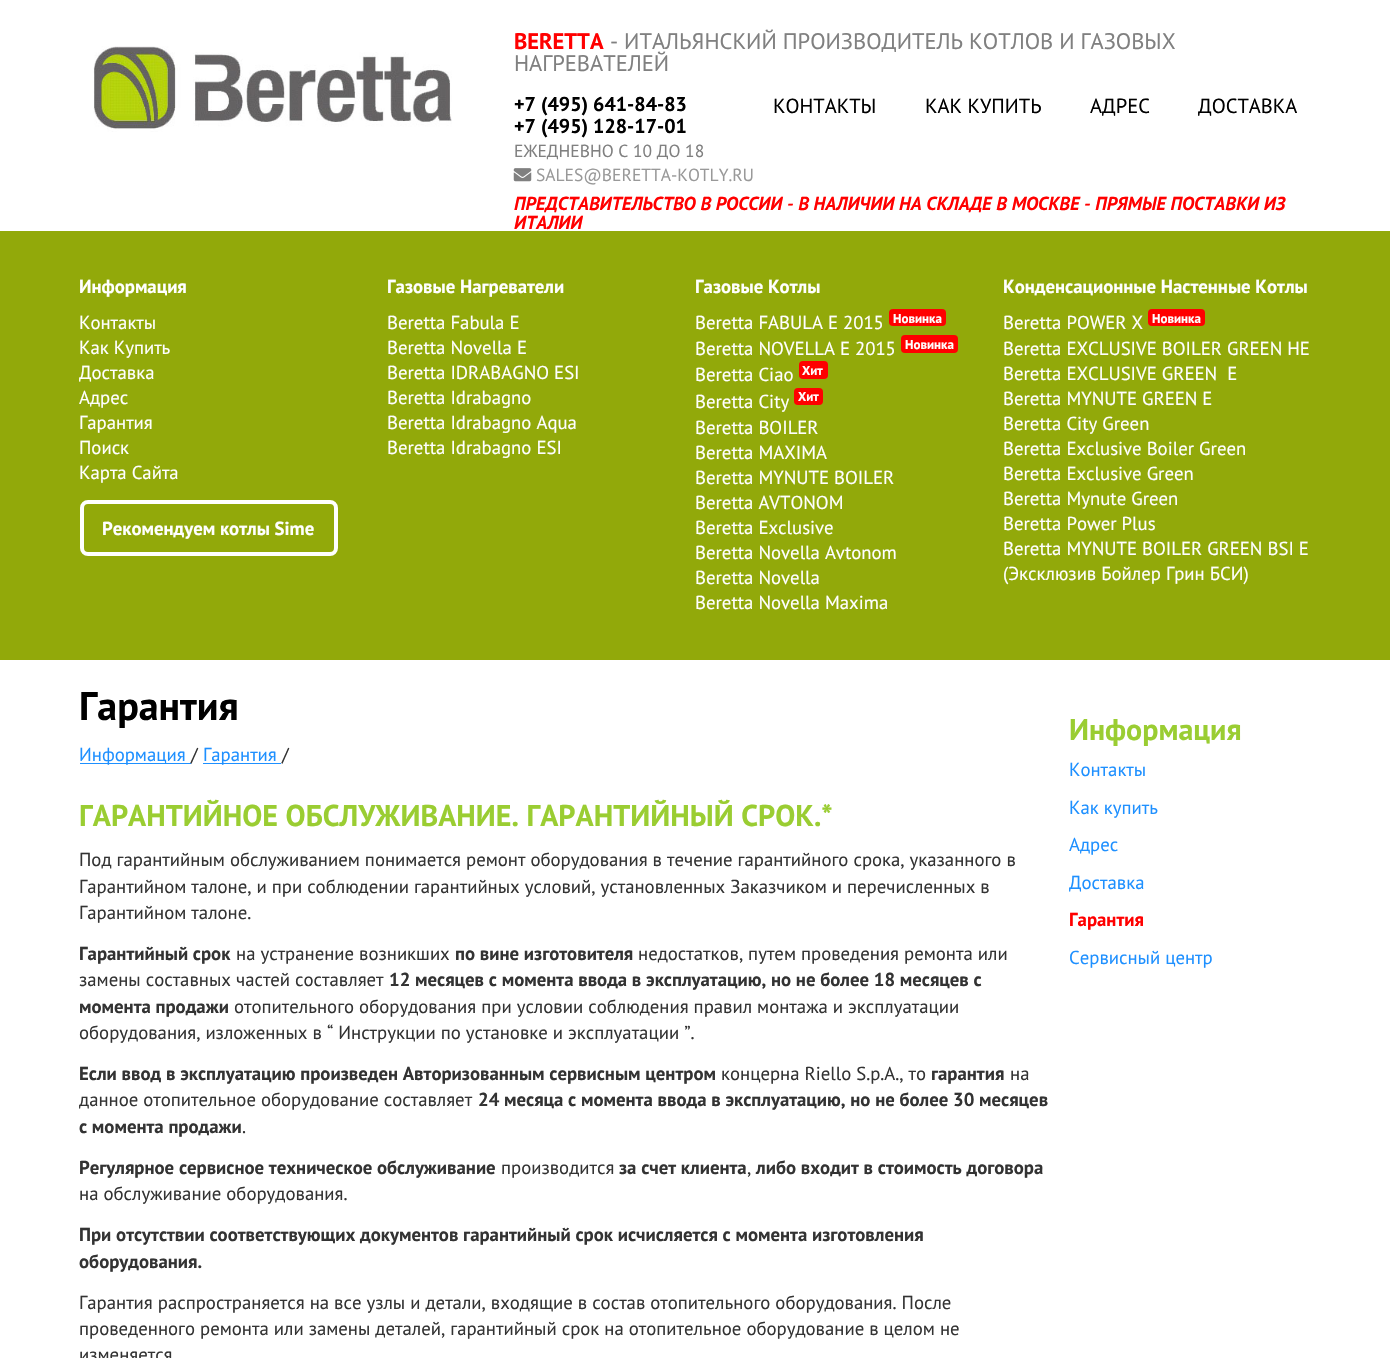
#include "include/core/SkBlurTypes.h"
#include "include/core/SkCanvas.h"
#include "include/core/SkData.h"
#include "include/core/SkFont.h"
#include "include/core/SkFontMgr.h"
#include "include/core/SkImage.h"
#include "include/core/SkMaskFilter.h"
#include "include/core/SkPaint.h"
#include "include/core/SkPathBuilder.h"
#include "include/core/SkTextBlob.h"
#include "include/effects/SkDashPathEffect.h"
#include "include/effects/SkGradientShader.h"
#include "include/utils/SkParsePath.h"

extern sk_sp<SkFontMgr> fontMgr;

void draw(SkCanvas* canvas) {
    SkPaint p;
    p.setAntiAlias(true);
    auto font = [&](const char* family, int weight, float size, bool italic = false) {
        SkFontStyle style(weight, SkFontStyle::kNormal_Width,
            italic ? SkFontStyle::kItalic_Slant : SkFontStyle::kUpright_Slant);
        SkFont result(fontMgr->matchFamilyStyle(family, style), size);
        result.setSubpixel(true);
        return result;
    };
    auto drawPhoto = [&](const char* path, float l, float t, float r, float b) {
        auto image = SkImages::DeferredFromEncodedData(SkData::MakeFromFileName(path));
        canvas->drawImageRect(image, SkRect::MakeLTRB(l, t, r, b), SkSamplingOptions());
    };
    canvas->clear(0xFFFFFFFF);
    drawPhoto("media/1.png", 93, 46, 452, 132);
    auto font1 = font("PT Sans", 700, 22.5f);
    p.setColor(0xFFFF0000);
    canvas->drawString("BERETTA", 514, 49, font1, p);
    auto font2 = font("PT Sans", 400, 22.5f);
    p.setColor(0xFF808080);
    canvas->drawString("- ИТАЛЬЯНСКИЙ ПРОИЗВОДИТЕЛЬ КОТЛОВ И ГАЗОВЫХ", 610, 49, font2, p);
    canvas->drawString("НАГРЕВАТЕЛЕЙ", 514, 71, font2, p);
    auto font3 = font("PT Sans", 700, 20);
    p.setColor(0xFF000000);
    canvas->drawString("+7 (495) 641-84-83", 514, 111, font3, p);
    canvas->drawString("+7 (495) 128-17-01", 514, 133, font3, p);
    auto font4 = font("PT Sans", 400, 17.5f);
    p.setColor(0xFF808080);
    canvas->drawString("ЕЖЕДНЕВНО С 10 ДО 18", 514, 157, font4, p);
    drawPhoto("media/2.png", 513, 168, 532, 182);
    p.setColor(0xFF999999);
    canvas->drawString("SALES@BERETTA-KOTLY.RU", 536, 181, font4, p);
    auto font5 = font("PT Sans", 400, 20.5f);
    p.setColor(0xFF000000);
    {
        const struct { const char* s; float x, y; } items[] = {
            {"КОНТАКТЫ", 773, 113},
            {"КАК КУПИТЬ", 925, 113},
            {"АДРЕС", 1090, 113},
            {"ДОСТАВКА", 1198, 113},
        };
        for (auto [s, x, y] : items) {
            canvas->drawString(s, x, y, font5, p);
        }
    }
    auto font6 = font("PT Sans", 700, 18.75f, true);
    p.setColor(0xFFFF0000);
    canvas->drawString("ПРЕДСТАВИТЕЛЬСТВО В РОССИИ - В НАЛИЧИИ НА СКЛАДЕ В МОСКВЕ - ПРЯМЫЕ ПОСТАВКИ ИЗ", 514, 210, font6, p);
    canvas->drawString("ИТАЛИИ", 514, 229, font6, p);
    p.setColor(0xFF92A90A);
    canvas->drawRect(SkRect::MakeLTRB(0, 231, 1390, 660), p);
    auto font7 = font("PT Sans", 700, 18.75f);
    p.setColor(0xFFFFFFFF);
    canvas->drawString("Информация", 79, 293, font7, p);
    auto font8 = font("PT Sans", 400, 18.75f);
    {
        const struct { const char* s; float x, y; } items[] = {
            {"Контакты", 79, 329},
            {"Как Купить", 79, 354},
            {"Доставка", 79, 379},
            {"Адрес", 79, 404},
            {"Гарантия", 79, 429},
            {"Поиск", 79, 454},
            {"Карта Сайта", 79, 479},
        };
        for (auto [s, x, y] : items) {
            canvas->drawString(s, x, y, font8, p);
        }
    }
    p.setStyle(SkPaint::kStroke_Style);
    p.setStrokeWidth(4);
    canvas->drawRoundRect(SkRect::MakeLTRB(82, 502, 336, 554), 6, 6, p);
    p.setStyle(SkPaint::kFill_Style);
    canvas->drawString("Рекомендуем котлы Sime", 102, 535, font7, p);
    canvas->drawString("Газовые Нагреватели", 387, 293, font7, p);
    {
        const struct { const char* s; float x, y; } items[] = {
            {"Beretta Fabula E", 387, 329},
            {"Beretta Novella E", 387, 354},
            {"Beretta IDRABAGNO ESI", 387, 379},
            {"Beretta Idrabagno", 387, 404},
            {"Beretta Idrabagno Aqua", 387, 429},
            {"Beretta Idrabagno ESI", 387, 454},
        };
        for (auto [s, x, y] : items) {
            canvas->drawString(s, x, y, font8, p);
        }
    }
    canvas->drawString("Газовые Котлы", 695, 293, font7, p);
    canvas->drawString("Beretta FABULA E 2015", 695, 329, font8, p);
    p.setColor(0xFFFF0000);
    canvas->drawRoundRect(SkRect::MakeLTRB(889, 309, 946, 326), 4, 4, p);
    auto font9 = font("PT Sans", 700, 13);
    p.setColor(0xFFFFFFFF);
    canvas->drawString("Новинка", 893, 323, font9, p);
    canvas->drawString("Beretta NOVELLA E 2015", 695, 355, font8, p);
    p.setColor(0xFFFF0000);
    canvas->drawRoundRect(SkRect::MakeLTRB(901, 335, 958, 353), 4, 4, p);
    p.setColor(0xFFFFFFFF);
    canvas->drawString("Новинка", 905, 349, font9, p);
    canvas->drawString("Beretta Ciao", 695, 381, font8, p);
    p.setColor(0xFFFF0000);
    canvas->drawRoundRect(SkRect::MakeLTRB(799, 361, 828, 379), 4, 4, p);
    p.setColor(0xFFFFFFFF);
    canvas->drawString("Хит", 802, 375, font9, p);
    canvas->drawString("Beretta City", 695, 408, font8, p);
    p.setColor(0xFFFF0000);
    canvas->drawRoundRect(SkRect::MakeLTRB(794, 388, 823, 405), 4, 4, p);
    p.setColor(0xFFFFFFFF);
    canvas->drawString("Хит", 798, 401, font9, p);
    {
        const struct { const char* s; float x, y; } items[] = {
            {"Beretta BOILER", 695, 434},
            {"Beretta MAXIMA", 695, 459},
            {"Beretta MYNUTE BOILER", 695, 484},
            {"Beretta AVTONOM", 695, 509},
            {"Beretta Exclusive", 695, 534},
            {"Beretta Novella Avtonom", 695, 559},
            {"Beretta Novella", 695, 584},
            {"Beretta Novella Maxima", 695, 609},
        };
        for (auto [s, x, y] : items) {
            canvas->drawString(s, x, y, font8, p);
        }
    }
    canvas->drawString("Конденсационные Настенные Котлы", 1003, 293, font7, p);
    canvas->drawString("Beretta POWER X", 1003, 329, font8, p);
    p.setColor(0xFFFF0000);
    canvas->drawRoundRect(SkRect::MakeLTRB(1148, 309, 1205, 326), 4, 4, p);
    p.setColor(0xFFFFFFFF);
    canvas->drawString("Новинка", 1152, 323, font9, p);
    {
        const struct { const char* s; float x, y; } items[] = {
            {"Beretta EXCLUSIVE BOILER GREEN HE", 1003, 355},
            {"Beretta EXCLUSIVE GREEN  E", 1003, 380},
            {"Beretta MYNUTE GREEN E", 1003, 405},
            {"Beretta City Green", 1003, 430},
            {"Beretta Exclusive Boiler Green", 1003, 455},
            {"Beretta Exclusive Green", 1003, 480},
            {"Beretta Mynute Green", 1003, 505},
            {"Beretta Power Plus", 1003, 530},
            {"Beretta MYNUTE BOILER GREEN BSI E", 1003, 555},
            {"(Эксклюзив Бойлер Грин БСИ)", 1003, 580},
        };
        for (auto [s, x, y] : items) {
            canvas->drawString(s, x, y, font8, p);
        }
    }
    auto font10 = font("PT Sans", 700, 40);
    p.setColor(0xFF000000);
    canvas->drawString("Гарантия", 79, 720, font10, p);
    p.setColor(0xFF1E90FF);
    canvas->drawRect(SkRect::MakeLTRB(80, 763, 191, 764), p);
    canvas->drawString("Информация", 79, 761, font8, p);
    p.setColor(0xFF333333);
    canvas->drawString("/", 191, 761, font8, p);
    p.setColor(0xFF1E90FF);
    canvas->drawRect(SkRect::MakeLTRB(203, 763, 281, 764), p);
    canvas->drawString("Гарантия", 203, 761, font8, p);
    p.setColor(0xFF333333);
    canvas->drawString("/", 282, 761, font8, p);
    auto font11 = font("PT Sans", 700, 30);
    p.setColor(0xFF9ACD32);
    canvas->drawString("ГАРАНТИЙНОЕ ОБСЛУЖИВАНИЕ. ГАРАНТИЙНЫЙ СРОК.*", 79, 826, font11, p);
    p.setColor(0xFF333333);
    {
        const struct { const char* s; float x, y; } items[] = {
            {"Под гарантийным обслуживанием понимается ремонт оборудования в течение гарантийного срока, указанного в", 79, 866},
            {"Гарантийном талоне, и при соблюдении гарантийных условий, установленных Заказчиком и перечисленных в", 79, 893},
            {"Гарантийном талоне.", 79, 919},
        };
        for (auto [s, x, y] : items) {
            canvas->drawString(s, x, y, font8, p);
        }
    }
    canvas->drawString("Гарантийный срок", 79, 960, font7, p);
    canvas->drawString("на устранение возникших", 236, 960, font8, p);
    canvas->drawString("по вине изготовителя", 455, 960, font7, p);
    canvas->drawString("недостатков, путем проведения ремонта или", 638, 960, font8, p);
    canvas->drawString("замены составных частей составляет", 79, 986, font8, p);
    canvas->drawString("12 месяцев с момента ввода в эксплуатацию, но не более 18 месяцев с", 389, 986, font7, p);
    canvas->drawString("момента продажи", 79, 1013, font7, p);
    canvas->drawString("отопительного оборудования при условии соблюдения правил монтажа и эксплуатации", 234, 1013, font8, p);
    canvas->drawString("оборудования, изложенных в “ Инструкции по установке и эксплуатации ”.", 79, 1039, font8, p);
    canvas->drawString("Если ввод в эксплуатацию произведен Авторизованным сервисным центром", 79, 1080, font7, p);
    canvas->drawString("концерна Riello S.p.А., то", 721, 1080, font8, p);
    canvas->drawString("гарантия", 931, 1080, font7, p);
    canvas->drawString("на", 1010, 1080, font8, p);
    canvas->drawString("данное отопительное оборудование составляет", 79, 1106, font8, p);
    canvas->drawString("24 месяца с момента ввода в эксплуатацию, но не более 30 месяцев", 478, 1106, font7, p);
    canvas->drawString("с момента продажи", 79, 1133, font7, p);
    canvas->drawString(".", 242, 1133, font8, p);
    canvas->drawString("Регулярное сервисное техническое обслуживание", 79, 1174, font7, p);
    canvas->drawString("производится", 501, 1174, font8, p);
    canvas->drawString("за счет клиента", 619, 1174, font7, p);
    canvas->drawString(",", 747, 1174, font8, p);
    canvas->drawString("либо входит в стоимость договора", 756, 1174, font7, p);
    canvas->drawString("на обслуживание оборудования.", 79, 1200, font8, p);
    canvas->drawString("При отсутствии соответствующих документов гарантийный срок исчисляется с момента изготовления", 79, 1241, font7, p);
    canvas->drawString("оборудования.", 79, 1268, font7, p);
    {
        const struct { const char* s; float x, y; } items[] = {
            {"Гарантия распространяется на все узлы и детали, входящие в состав отопительного оборудования. После", 79, 1309},
            {"проведенного ремонта или замены деталей, гарантийный срок на отопительное оборудование в целом не", 79, 1335},
            {"изменяется", 79, 1361},
        };
        for (auto [s, x, y] : items) {
            canvas->drawString(s, x, y, font8, p);
        }
    }
    p.setColor(0xFF9ACD32);
    canvas->drawString("Информация", 1069, 740, font11, p);
    p.setColor(0xFF1E90FF);
    {
        const struct { const char* s; float x, y; } items[] = {
            {"Контакты", 1069, 776},
            {"Как купить", 1069, 814},
            {"Адрес", 1069, 851},
            {"Доставка", 1069, 889},
        };
        for (auto [s, x, y] : items) {
            canvas->drawString(s, x, y, font8, p);
        }
    }
    p.setColor(0xFFFF0000);
    canvas->drawString("Гарантия", 1069, 926, font7, p);
    p.setColor(0xFF1E90FF);
    canvas->drawString("Сервисный центр", 1069, 964, font8, p);
}
